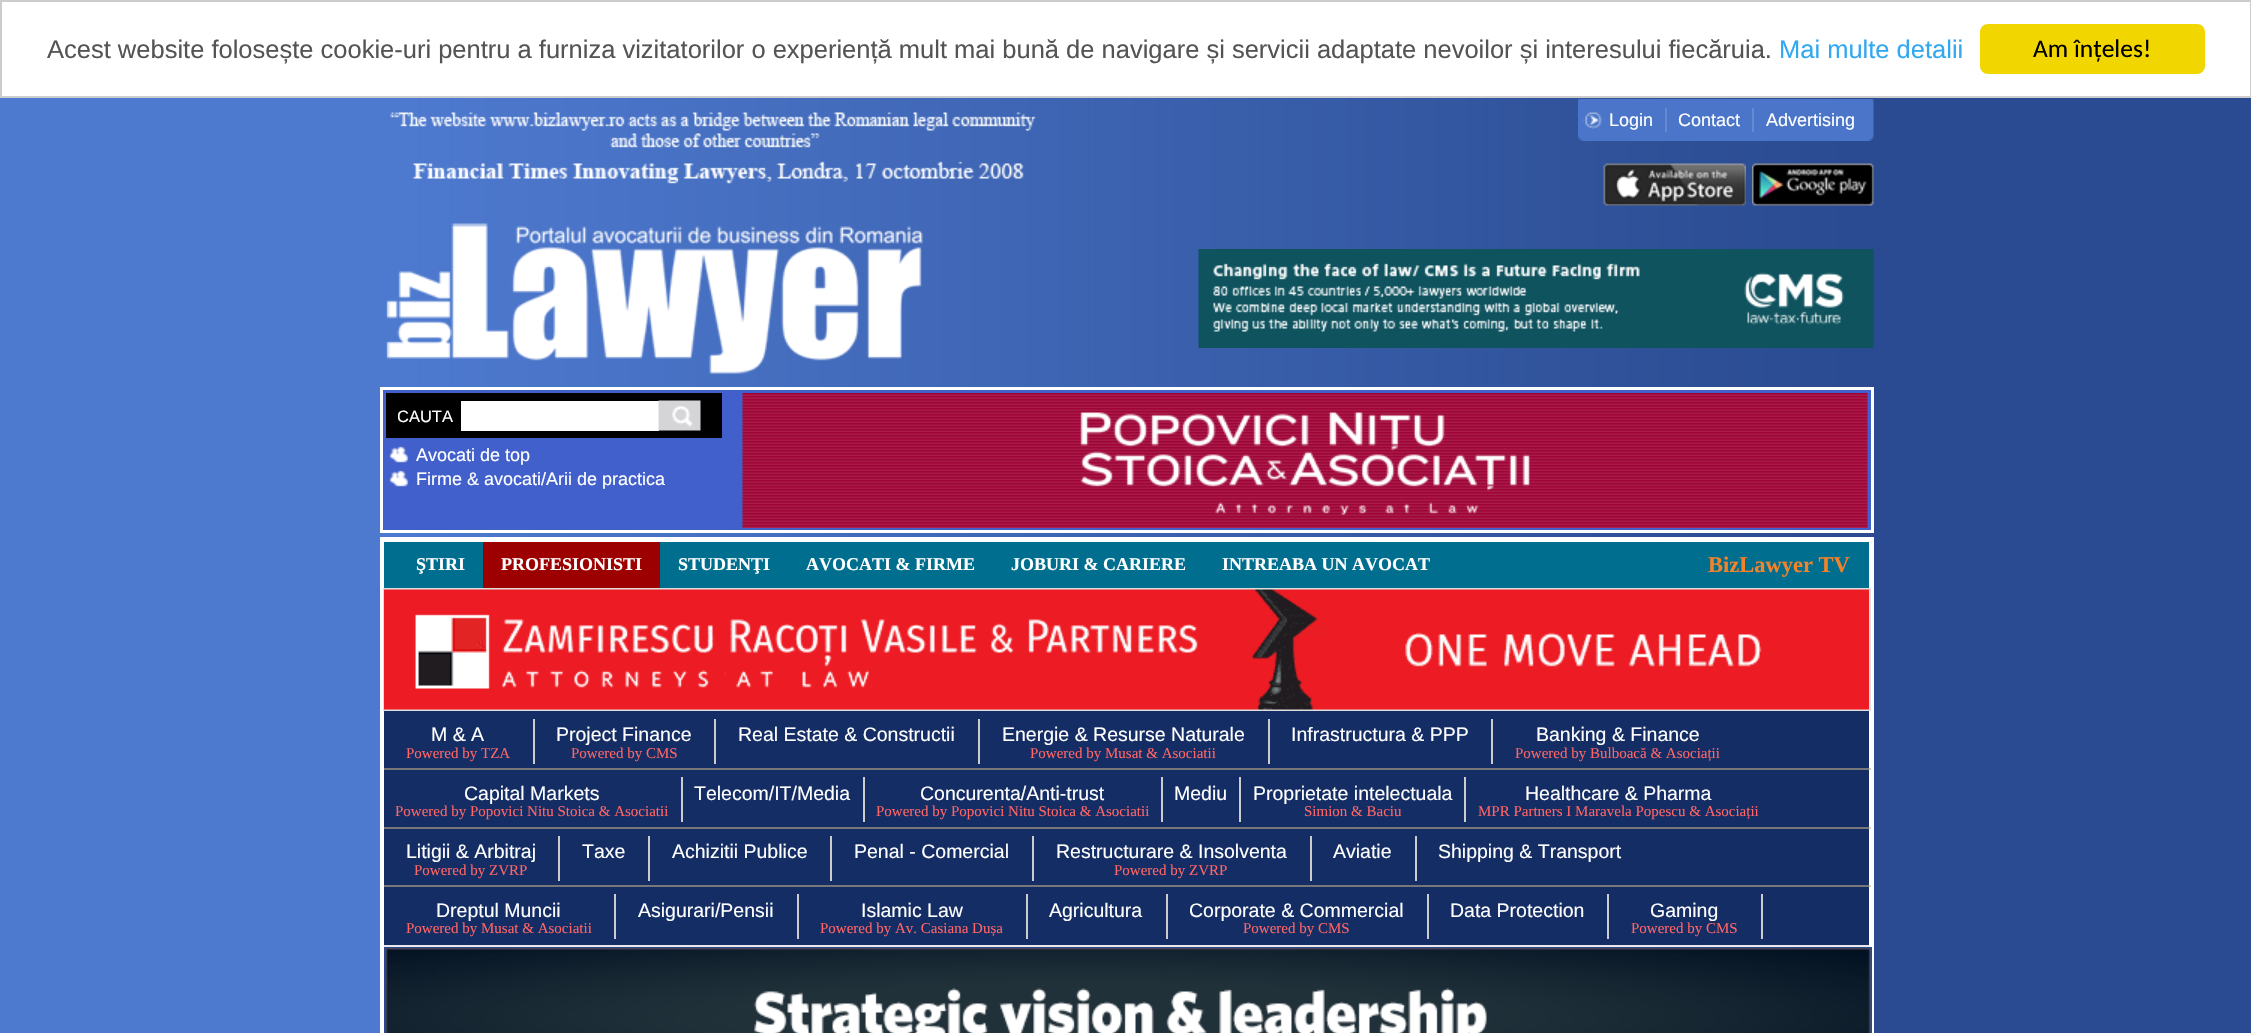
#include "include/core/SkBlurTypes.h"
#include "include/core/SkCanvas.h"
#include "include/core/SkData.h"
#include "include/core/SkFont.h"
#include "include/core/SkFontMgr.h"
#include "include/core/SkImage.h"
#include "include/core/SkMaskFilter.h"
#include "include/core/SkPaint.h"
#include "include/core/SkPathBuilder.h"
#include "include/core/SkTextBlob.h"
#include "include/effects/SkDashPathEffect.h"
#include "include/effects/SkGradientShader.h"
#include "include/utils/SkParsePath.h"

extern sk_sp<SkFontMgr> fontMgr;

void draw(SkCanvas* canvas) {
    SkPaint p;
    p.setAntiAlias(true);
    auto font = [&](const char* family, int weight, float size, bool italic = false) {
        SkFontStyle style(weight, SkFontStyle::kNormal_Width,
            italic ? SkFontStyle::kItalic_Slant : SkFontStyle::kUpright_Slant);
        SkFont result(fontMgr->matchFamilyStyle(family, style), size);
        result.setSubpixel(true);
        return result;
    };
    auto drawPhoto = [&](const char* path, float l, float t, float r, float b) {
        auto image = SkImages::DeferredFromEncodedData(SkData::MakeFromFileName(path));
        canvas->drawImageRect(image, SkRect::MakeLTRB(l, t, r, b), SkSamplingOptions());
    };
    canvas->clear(0xFFFFFFFF);
    drawPhoto("media/1.png", 0, 98, 2251, 1033);
    p.setStyle(SkPaint::kStroke_Style);
    p.setStrokeWidth(2);
    p.setColor(0xFFCCCCCC);
    canvas->drawRect(SkRect::MakeLTRB(1, 1, 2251, 97), p);
    auto font1 = font("Liberation Sans", 400, 25.5f);
    p.setStyle(SkPaint::kFill_Style);
    p.setColor(0xFF545454);
    canvas->drawString("Acest website folosește cookie-uri pentru a furniza vizitatorilor o experiență mult mai bună de navigare și servicii adaptate nevoilor și interesului fiecăruia.", 47, 58, font1, p);
    p.setColor(0xFF31A8F0);
    canvas->drawString("Mai multe detalii", 1779, 58, font1, p);
    p.setColor(0xFFF1D600);
    canvas->drawRoundRect(SkRect::MakeLTRB(1980, 24, 2205, 74), 8, 8, p);
    auto font2 = font("Carlito", 400, 25.5f);
    p.setColor(0xFF000000);
    canvas->drawString("Am înțeles!", 2033, 57, font2, p);
    drawPhoto("media/2.png", 389, 112, 1036, 184);
    drawPhoto("media/3.png", 1578, 99, 1584, 141);
    p.setColor(0xFF4A75C8);
    canvas->drawRect(SkRect::MakeLTRB(1584, 99, 1868, 141), p);
    drawPhoto("media/4.png", 1584, 111, 1602, 129);
    p.setColor(0xFF668ACF);
    canvas->drawRect(SkRect::MakeLTRB(1665, 108, 1667, 132), p);
    auto font3 = font("Liberation Sans", 400, 18);
    p.setColor(0xFFFFFFFF);
    canvas->drawString("Login", 1609, 126, font3, p);
    p.setColor(0xFF668ACF);
    canvas->drawRect(SkRect::MakeLTRB(1752, 108, 1754, 132), p);
    p.setColor(0xFFFFFFFF);
    canvas->drawString("Contact", 1678, 126, font3, p);
    canvas->drawString("Advertising", 1766, 126, font3, p);
    drawPhoto("media/5.png", 1868, 99, 1874, 141);
    drawPhoto("media/6.png", 1603, 163, 1746, 206);
    drawPhoto("media/7.png", 1752, 163, 1874, 206);
    drawPhoto("media/8.png", 386, 223, 923, 374);
    drawPhoto("media/9.png", 1198, 249, 1874, 348);
    p.setColor(0xFF4160CB);
    canvas->drawRect(SkRect::MakeLTRB(381.5f, 388.5f, 1872.5f, 531.5f), p);
    p.setStyle(SkPaint::kStroke_Style);
    p.setStrokeWidth(3);
    p.setColor(0xFFFFFFFF);
    canvas->drawRect(SkRect::MakeLTRB(381.5f, 388.5f, 1872.5f, 531.5f), p);
    p.setStyle(SkPaint::kFill_Style);
    p.setColor(0xFF000000);
    canvas->drawRect(SkRect::MakeLTRB(386, 393, 722, 438), p);
    canvas->save();
    canvas->clipRect(SkRect::MakeLTRB(398, 401, 453, 431));
    auto font4 = font("Liberation Sans", 400, 16.5f);
    p.setColor(0xFFFFFFFF);
    canvas->drawString("CAUTA", 397, 422, font4, p);
    canvas->restore();
    canvas->drawRect(SkRect::MakeLTRB(461, 401, 659, 431), p);
    drawPhoto("media/10.png", 658, 400, 701, 431);
    drawPhoto("media/11.png", 389, 446, 409, 463);
    canvas->drawString("Avocati de top", 416, 461, font3, p);
    drawPhoto("media/11.png", 389, 470, 409, 487);
    canvas->drawString("Firme & avocati/Arii de practica", 416, 485, font3, p);
    drawPhoto("media/12.png", 742, 393, 1868, 528);
    canvas->drawRect(SkRect::MakeLTRB(380, 537, 1874, 1033), p);
    p.setColor(0xFF006F8F);
    canvas->drawRect(SkRect::MakeLTRB(384, 542, 1869, 588), p);
    auto font5 = font("Liberation Serif", 700, 18);
    p.setColor(0xFFFFFFFF);
    canvas->drawString("ŞTIRI", 416, 570, font5, p);
    p.setColor(0xFF9C0000);
    canvas->drawRect(SkRect::MakeLTRB(483, 542, 660, 588), p);
    p.setColor(0xFFFFFFFF);
    {
        const struct { const char* s; float x, y; } items[] = {
            {"PROFESIONISTI", 501, 570},
            {"STUDENŢI", 678, 570},
            {"AVOCATI & FIRME", 806, 570},
            {"JOBURI & CARIERE", 1011, 570},
            {"INTREABA UN AVOCAT", 1222, 570},
        };
        for (auto [s, x, y] : items) {
            canvas->drawString(s, x, y, font5, p);
        }
    }
    auto font6 = font("Liberation Serif", 700, 22.5f);
    p.setColor(0xFFF48228);
    canvas->drawString("BizLawyer TV", 1708, 572, font6, p);
    p.setStyle(SkPaint::kStroke_Style);
    p.setStrokeWidth(2);
    p.setColor(0xFFDEDEDE);
    canvas->drawRect(SkRect::MakeLTRB(384, 589, 1870, 710), p);
    drawPhoto("media/13.png", 384, 589, 1869, 710);
    p.setStyle(SkPaint::kFill_Style);
    p.setColor(0xFF142D65);
    canvas->drawRect(SkRect::MakeLTRB(384, 711, 1869, 945), p);
    p.setColor(0xFFCCCCCC);
    canvas->drawRect(SkRect::MakeLTRB(533, 719, 535, 764), p);
    auto font7 = font("Liberation Sans", 400, 19.5f);
    p.setColor(0xFFFFFFFF);
    canvas->drawString("M & A", 431, 741, font7, p);
    auto font8 = font("Liberation Serif", 400, 15);
    p.setColor(0xFFFF6565);
    canvas->drawString("Powered by TZA", 406, 758, font8, p);
    p.setColor(0xFFCCCCCC);
    canvas->drawRect(SkRect::MakeLTRB(714, 719, 716, 764), p);
    p.setColor(0xFFFFFFFF);
    canvas->drawString("Project Finance", 556, 741, font7, p);
    p.setColor(0xFFFF6565);
    canvas->drawString("Powered by CMS", 571, 758, font8, p);
    p.setColor(0xFFCCCCCC);
    canvas->drawRect(SkRect::MakeLTRB(978, 719, 980, 764), p);
    p.setColor(0xFFFFFFFF);
    canvas->drawString("Real Estate & Constructii", 738, 741, font7, p);
    p.setColor(0xFFCCCCCC);
    canvas->drawRect(SkRect::MakeLTRB(1268, 719, 1270, 764), p);
    p.setColor(0xFFFFFFFF);
    canvas->drawString("Energie & Resurse Naturale", 1002, 741, font7, p);
    p.setColor(0xFFFF6565);
    canvas->drawString("Powered by Musat & Asociatii", 1030, 758, font8, p);
    p.setColor(0xFFCCCCCC);
    canvas->drawRect(SkRect::MakeLTRB(1491, 719, 1493, 764), p);
    p.setColor(0xFFFFFFFF);
    canvas->drawString("Infrastructura & PPP", 1291, 741, font7, p);
    canvas->drawString("Banking & Finance", 1536, 741, font7, p);
    p.setColor(0xFFFF6565);
    canvas->drawString("Powered by Bulboacă & Asociații", 1515, 758, font8, p);
    {
        const struct { float l, t, r, b; SkColor color; } items[] = {
            {384, 768, 1871, 770, 0xFF777777},
            {1869, 768, 1871, 770, 0xFFCCCCCC},
            {681, 777, 683, 822, 0xFFCCCCCC},
        };
        for (auto [l, t, r, b, color] : items) {
            p.setColor(color);
            canvas->drawRect(SkRect::MakeLTRB(l, t, r, b), p);
        }
    }
    p.setColor(0xFFFFFFFF);
    canvas->drawString("Capital Markets", 464, 800, font7, p);
    p.setColor(0xFFFF6565);
    canvas->drawString("Powered by Popovici Nitu Stoica & Asociatii", 395, 816, font8, p);
    p.setColor(0xFFCCCCCC);
    canvas->drawRect(SkRect::MakeLTRB(863, 777, 865, 822), p);
    p.setColor(0xFFFFFFFF);
    canvas->drawString("Telecom/IT/Media", 694, 800, font7, p);
    p.setColor(0xFFCCCCCC);
    canvas->drawRect(SkRect::MakeLTRB(1161, 777, 1163, 822), p);
    p.setColor(0xFFFFFFFF);
    canvas->drawString("Concurenta/Anti-trust", 920, 800, font7, p);
    p.setColor(0xFFFF6565);
    canvas->drawString("Powered by Popovici Nitu Stoica & Asociatii", 876, 816, font8, p);
    p.setColor(0xFFCCCCCC);
    canvas->drawRect(SkRect::MakeLTRB(1239, 777, 1241, 822), p);
    p.setColor(0xFFFFFFFF);
    canvas->drawString("Mediu", 1174, 800, font7, p);
    p.setColor(0xFFCCCCCC);
    canvas->drawRect(SkRect::MakeLTRB(1464, 777, 1466, 822), p);
    p.setColor(0xFFFFFFFF);
    canvas->drawString("Proprietate intelectuala", 1253, 800, font7, p);
    p.setColor(0xFFFF6565);
    canvas->drawString("Simion & Baciu", 1304, 816, font8, p);
    p.setColor(0xFFFFFFFF);
    canvas->drawString("Healthcare & Pharma", 1525, 800, font7, p);
    p.setColor(0xFFFF6565);
    canvas->drawString("MPR Partners I Maravela Popescu & Asociații", 1478, 816, font8, p);
    {
        const struct { float l, t, r, b; SkColor color; } items[] = {
            {384, 827, 1871, 829, 0xFF777777},
            {1869, 827, 1871, 829, 0xFFCCCCCC},
            {558, 836, 560, 881, 0xFFCCCCCC},
        };
        for (auto [l, t, r, b, color] : items) {
            p.setColor(color);
            canvas->drawRect(SkRect::MakeLTRB(l, t, r, b), p);
        }
    }
    p.setColor(0xFFFFFFFF);
    canvas->drawString("Litigii & Arbitraj", 406, 858, font7, p);
    p.setColor(0xFFFF6565);
    canvas->drawString("Powered by ZVRP", 414, 875, font8, p);
    p.setColor(0xFFCCCCCC);
    canvas->drawRect(SkRect::MakeLTRB(648, 836, 650, 881), p);
    p.setColor(0xFFFFFFFF);
    canvas->drawString("Taxe", 582, 858, font7, p);
    p.setColor(0xFFCCCCCC);
    canvas->drawRect(SkRect::MakeLTRB(830, 836, 832, 881), p);
    p.setColor(0xFFFFFFFF);
    canvas->drawString("Achizitii Publice", 672, 858, font7, p);
    p.setColor(0xFFCCCCCC);
    canvas->drawRect(SkRect::MakeLTRB(1032, 836, 1034, 881), p);
    p.setColor(0xFFFFFFFF);
    canvas->drawString("Penal - Comercial", 854, 858, font7, p);
    p.setColor(0xFFCCCCCC);
    canvas->drawRect(SkRect::MakeLTRB(1310, 836, 1312, 881), p);
    p.setColor(0xFFFFFFFF);
    canvas->drawString("Restructurare & Insolventa", 1056, 858, font7, p);
    p.setColor(0xFFFF6565);
    canvas->drawString("Powered by ZVRP", 1114, 875, font8, p);
    p.setColor(0xFFCCCCCC);
    canvas->drawRect(SkRect::MakeLTRB(1415, 836, 1417, 881), p);
    p.setColor(0xFFFFFFFF);
    canvas->drawString("Aviatie", 1333, 858, font7, p);
    canvas->drawString("Shipping & Transport", 1438, 858, font7, p);
    {
        const struct { float l, t, r, b; SkColor color; } items[] = {
            {384, 885, 1871, 887, 0xFF777777},
            {1869, 885, 1871, 887, 0xFFCCCCCC},
            {614, 894, 616, 939, 0xFFCCCCCC},
        };
        for (auto [l, t, r, b, color] : items) {
            p.setColor(color);
            canvas->drawRect(SkRect::MakeLTRB(l, t, r, b), p);
        }
    }
    p.setColor(0xFFFFFFFF);
    canvas->drawString("Dreptul Muncii", 436, 917, font7, p);
    p.setColor(0xFFFF6565);
    canvas->drawString("Powered by Musat & Asociatii", 406, 933, font8, p);
    p.setColor(0xFFCCCCCC);
    canvas->drawRect(SkRect::MakeLTRB(797, 894, 799, 939), p);
    p.setColor(0xFFFFFFFF);
    canvas->drawString("Asigurari/Pensii", 638, 917, font7, p);
    p.setColor(0xFFCCCCCC);
    canvas->drawRect(SkRect::MakeLTRB(1026, 894, 1028, 939), p);
    p.setColor(0xFFFFFFFF);
    canvas->drawString("Islamic Law", 861, 917, font7, p);
    p.setColor(0xFFFF6565);
    canvas->drawString("Powered by Av. Casiana Dușa", 820, 933, font8, p);
    p.setColor(0xFFCCCCCC);
    canvas->drawRect(SkRect::MakeLTRB(1166, 894, 1168, 939), p);
    p.setColor(0xFFFFFFFF);
    canvas->drawString("Agricultura", 1049, 917, font7, p);
    p.setColor(0xFFCCCCCC);
    canvas->drawRect(SkRect::MakeLTRB(1427, 894, 1429, 939), p);
    p.setColor(0xFFFFFFFF);
    canvas->drawString("Corporate & Commercial", 1189, 917, font7, p);
    p.setColor(0xFFFF6565);
    canvas->drawString("Powered by CMS", 1243, 933, font8, p);
    p.setColor(0xFFCCCCCC);
    canvas->drawRect(SkRect::MakeLTRB(1607, 894, 1609, 939), p);
    p.setColor(0xFFFFFFFF);
    canvas->drawString("Data Protection", 1450, 917, font7, p);
    p.setColor(0xFFCCCCCC);
    canvas->drawRect(SkRect::MakeLTRB(1761, 894, 1763, 939), p);
    p.setColor(0xFFFFFFFF);
    canvas->drawString("Gaming", 1650, 917, font7, p);
    p.setColor(0xFFFF6565);
    canvas->drawString("Powered by CMS", 1631, 933, font8, p);
    p.setColor(0xFFE8E8E8);
    canvas->drawRect(SkRect::MakeLTRB(384, 945, 1869, 947), p);
    p.setStyle(SkPaint::kStroke_Style);
    p.setColor(0xFF2A4B92);
    canvas->drawRect(SkRect::MakeLTRB(385, 948, 1871, 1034), p);
    drawPhoto("media/14.png", 385, 948, 1871, 1033);
}
